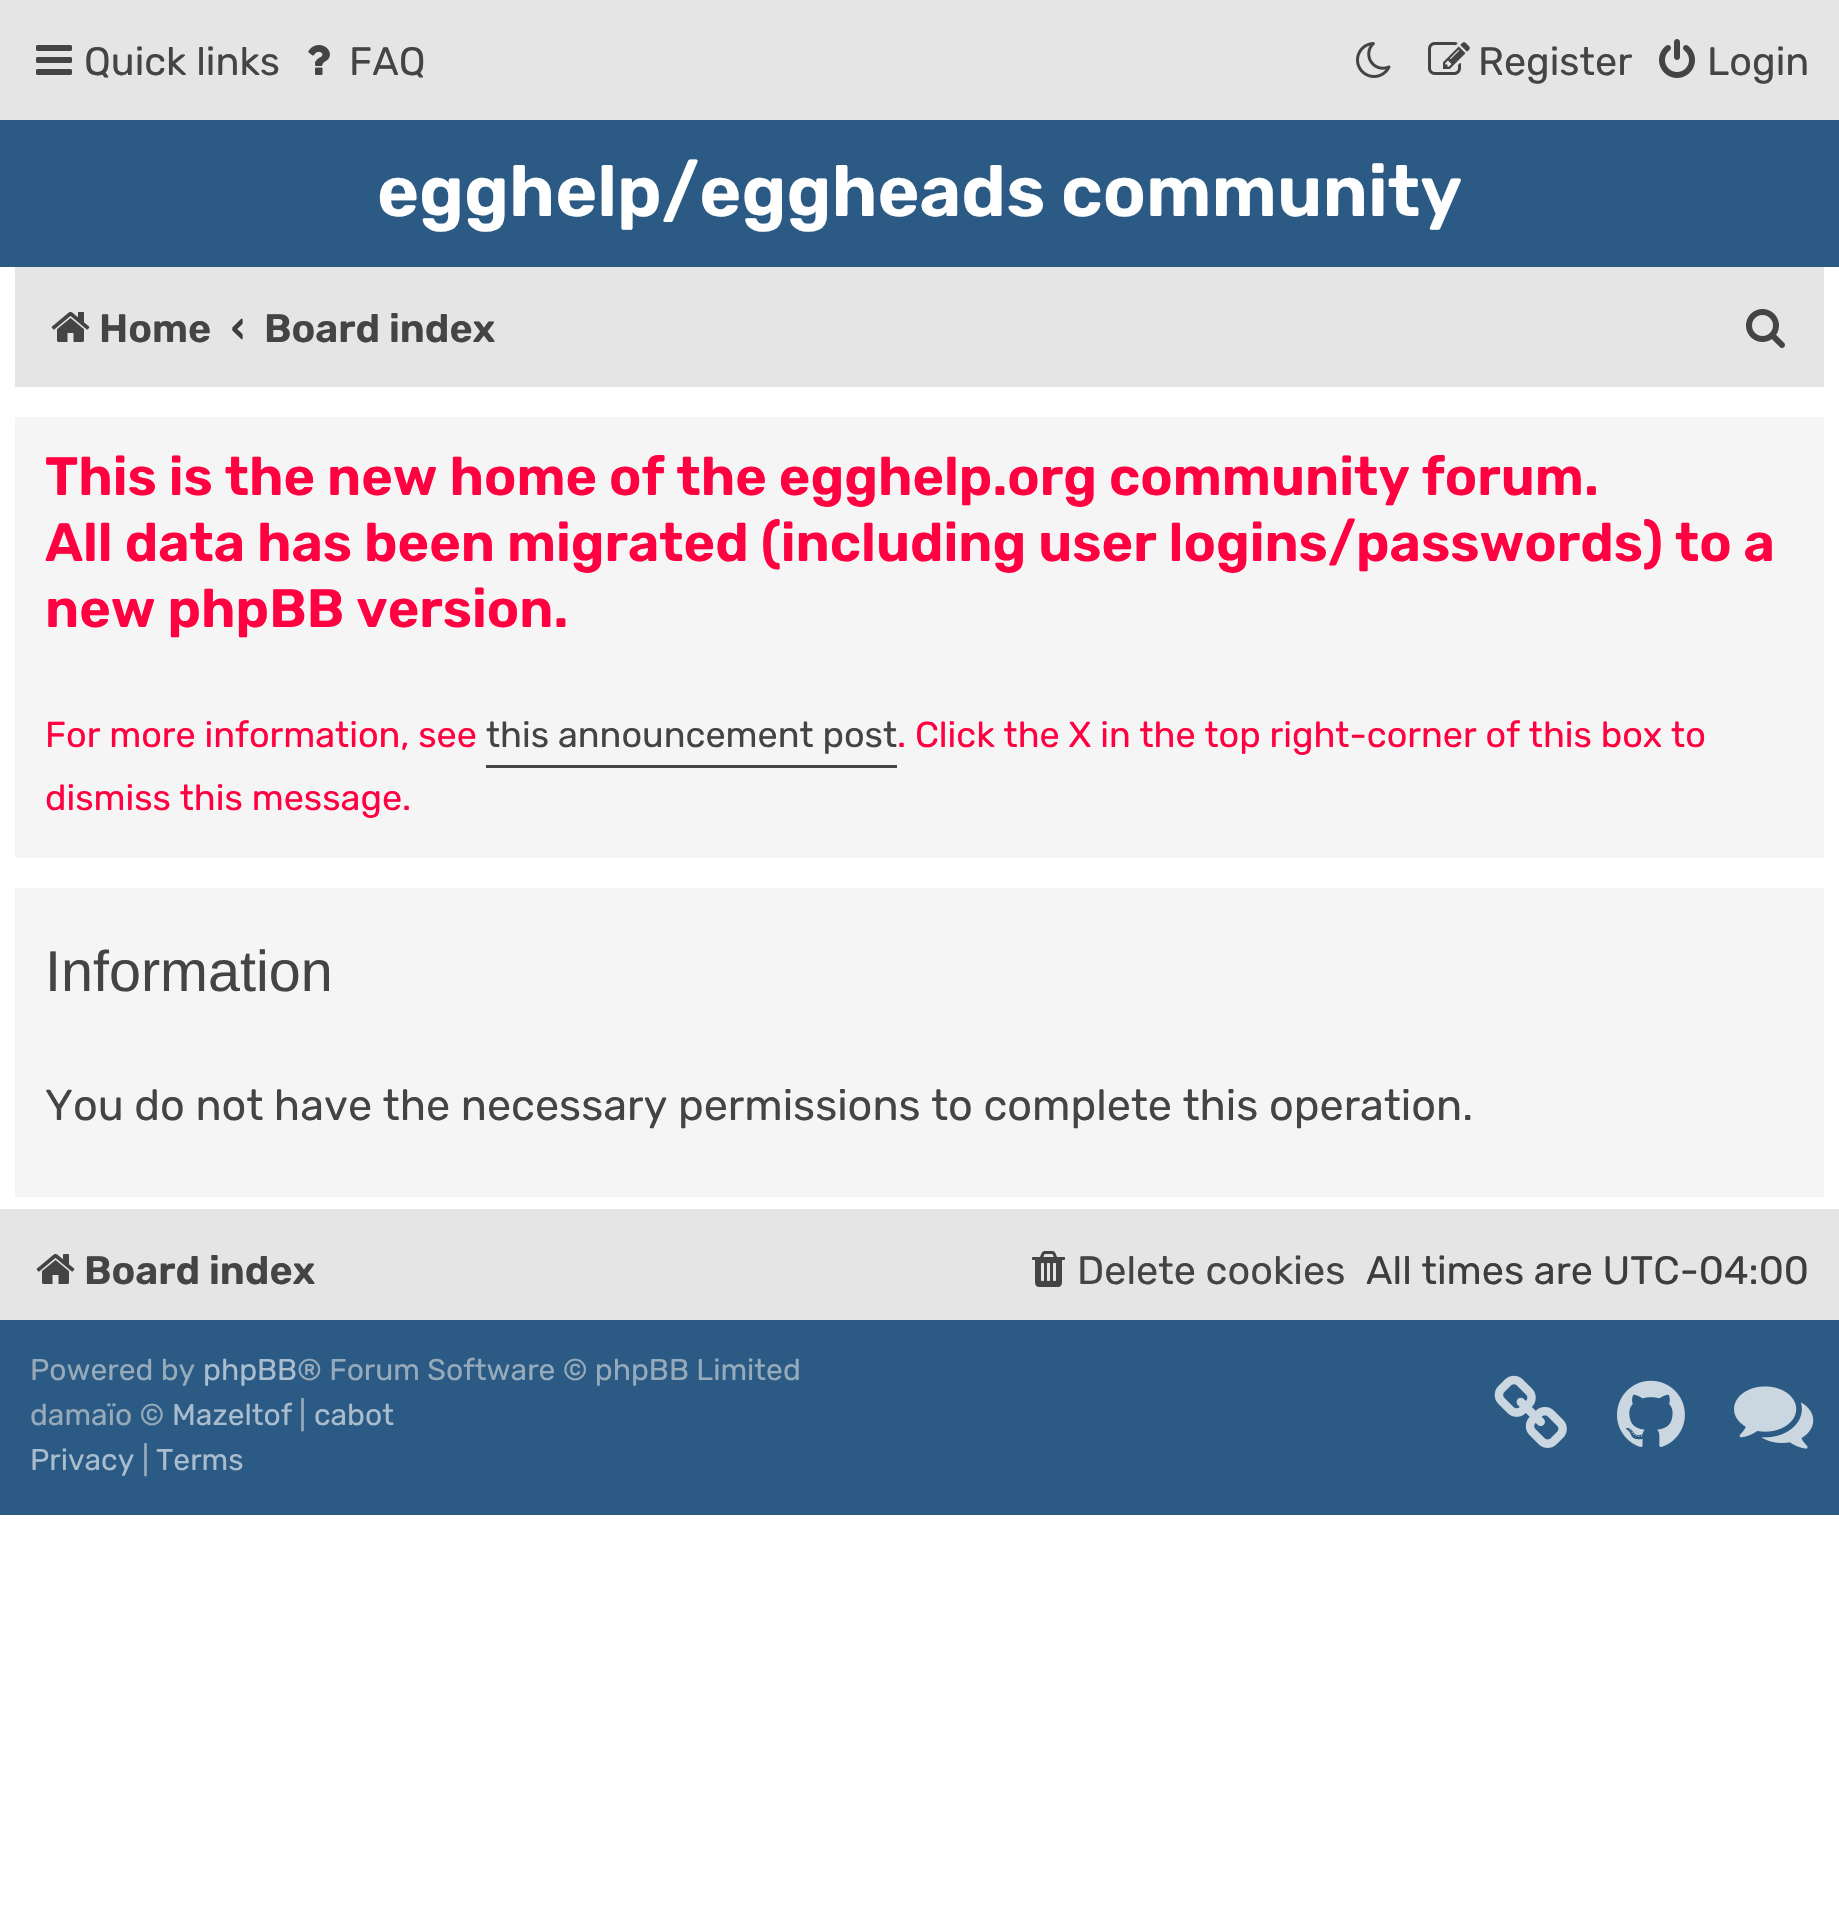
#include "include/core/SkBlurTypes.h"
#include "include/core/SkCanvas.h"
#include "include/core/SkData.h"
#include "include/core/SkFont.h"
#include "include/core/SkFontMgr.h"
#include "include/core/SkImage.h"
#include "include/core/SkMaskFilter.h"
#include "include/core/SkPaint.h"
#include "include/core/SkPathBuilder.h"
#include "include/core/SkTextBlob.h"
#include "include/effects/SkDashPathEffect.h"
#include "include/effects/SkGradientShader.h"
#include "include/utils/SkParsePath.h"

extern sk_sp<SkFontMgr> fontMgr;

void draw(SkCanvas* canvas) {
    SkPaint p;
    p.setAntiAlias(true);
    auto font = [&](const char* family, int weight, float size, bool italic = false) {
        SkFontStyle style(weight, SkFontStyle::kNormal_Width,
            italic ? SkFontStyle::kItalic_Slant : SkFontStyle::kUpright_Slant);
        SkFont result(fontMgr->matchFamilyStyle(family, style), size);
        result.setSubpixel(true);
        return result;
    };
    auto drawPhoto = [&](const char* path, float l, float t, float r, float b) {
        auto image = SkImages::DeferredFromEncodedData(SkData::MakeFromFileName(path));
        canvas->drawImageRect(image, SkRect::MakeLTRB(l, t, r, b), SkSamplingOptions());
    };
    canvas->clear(0xFFFFFFFF);
    p.setColor(0xFFE5E5E5);
    canvas->drawRect(SkRect::MakeLTRB(0, 0, 1839, 120), p);
    drawPhoto("media/1.png", 36, 45, 72, 75);
    auto font1 = font("Rubik", 300, 39.6f);
    p.setColor(0xFF444444);
    canvas->drawString("Quick links", 84, 75, font1, p);
    drawPhoto("media/2.png", 308, 45, 330, 75);
    canvas->drawString("FAQ", 349, 75, font1, p);
    drawPhoto("media/3.png", 1356, 42, 1391, 78);
    drawPhoto("media/4.png", 1428, 42, 1470, 75);
    canvas->drawString("Register", 1478, 75, font1, p);
    drawPhoto("media/5.png", 1659, 39, 1695, 78);
    canvas->drawString("Login", 1707, 75, font1, p);
    p.setColor(0xFF2B5B84);
    canvas->drawRect(SkRect::MakeLTRB(0, 120, 1839, 267), p);
    auto font2 = font("Rubik", 600, 72);
    p.setColor(0xFFFFFFFF);
    canvas->drawString("egghelp/eggheads community", 377, 216, font2, p);
    p.setColor(0xFFE5E5E5);
    canvas->drawRect(SkRect::MakeLTRB(15, 267, 1824, 387), p);
    drawPhoto("media/6.png", 51, 311, 90, 342);
    auto font3 = font("Rubik", 600, 39.6f);
    p.setColor(0xFF444444);
    canvas->drawString("Home", 99, 342, font3, p);
    p.setColor(0xFF3D3D3D);
    canvas->drawString("‹", 231, 342, font3, p);
    p.setColor(0xFF444444);
    canvas->drawString("Board index", 264, 342, font3, p);
    drawPhoto("media/7.png", 1746, 309, 1785, 348);
    p.setColor(0xFFF5F5F5);
    canvas->drawRect(SkRect::MakeLTRB(15, 417, 1824, 858), p);
    auto font4 = font("Rubik", 600, 54);
    p.setColor(0xFFFF0040);
    {
        const struct { const char* s; float x, y; } items[] = {
            {"This is the new home of the egghelp.org community forum.", 45, 495},
            {"All data has been migrated (including user logins/passwords) to a", 45, 561},
            {"new phpBB version.", 45, 627},
        };
        for (auto [s, x, y] : items) {
            canvas->drawString(s, x, y, font4, p);
        }
    }
    auto font5 = font("Rubik", 300, 36);
    canvas->drawString("For more information, see", 45, 747, font5, p);
    p.setColor(0xFF444444);
    canvas->drawRect(SkRect::MakeLTRB(486, 765, 897, 768), p);
    canvas->drawString("this announcement post", 486, 747, font5, p);
    p.setColor(0xFFFF0040);
    canvas->drawString(". Click the X in the top right-corner of this box to", 897, 747, font5, p);
    canvas->drawString("dismiss this message.", 45, 810, font5, p);
    p.setColor(0xFFF5F5F5);
    canvas->drawRect(SkRect::MakeLTRB(15, 888, 1824, 1197), p);
    auto font6 = font("Liberation Sans", 400, 57.5f);
    p.setColor(0xFF444444);
    canvas->drawString("Information", 45, 991, font6, p);
    auto font7 = font("Rubik", 300, 43.2f);
    canvas->drawString("You do not have the necessary permissions to complete this operation.", 45, 1120, font7, p);
    p.setColor(0xFFE5E5E5);
    canvas->drawRect(SkRect::MakeLTRB(0, 1209, 1839, 1320), p);
    drawPhoto("media/6.png", 36, 1253, 75, 1284);
    p.setColor(0xFF444444);
    canvas->drawString("Board index", 84, 1284, font3, p);
    drawPhoto("media/8.png", 1032, 1251, 1065, 1287);
    canvas->drawString("Delete cookies", 1077, 1284, font1, p);
    p.setColor(0xFF3D3D3D);
    canvas->drawString("All times are UTC-04:00", 1366, 1284, font1, p);
    p.setColor(0xFF2B5B84);
    canvas->drawRect(SkRect::MakeLTRB(0, 1320, 1839, 1515), p);
    auto font8 = font("Rubik", 300, 30);
    p.setColor(0xFF96AABA);
    canvas->drawString("Powered by", 30, 1380, font8, p);
    p.setColor(0xFFAABDCE);
    canvas->drawString("phpBB", 203, 1380, font8, p);
    p.setColor(0xFF96AABA);
    canvas->drawString("® Forum Software © phpBB Limited", 297, 1380, font8, p);
    canvas->drawString("damaïo ©", 30, 1425, font8, p);
    p.setColor(0xFFAABDCE);
    canvas->drawString("Mazeltof", 172, 1425, font8, p);
    p.setColor(0xFF96AABA);
    canvas->drawString("|", 299, 1425, font8, p);
    p.setColor(0xFFAABDCE);
    canvas->drawString("cabot", 314, 1425, font8, p);
    canvas->drawString("Privacy", 30, 1470, font8, p);
    p.setColor(0xFF96AABA);
    canvas->drawString("|", 142, 1470, font8, p);
    p.setColor(0xFFAABDCE);
    canvas->drawString("Terms", 156, 1470, font8, p);
    drawPhoto("media/9.png", 1494, 1375, 1567, 1448);
    drawPhoto("media/10.png", 1617, 1380, 1685, 1447);
    drawPhoto("media/11.png", 1734, 1386, 1814, 1449);
}
